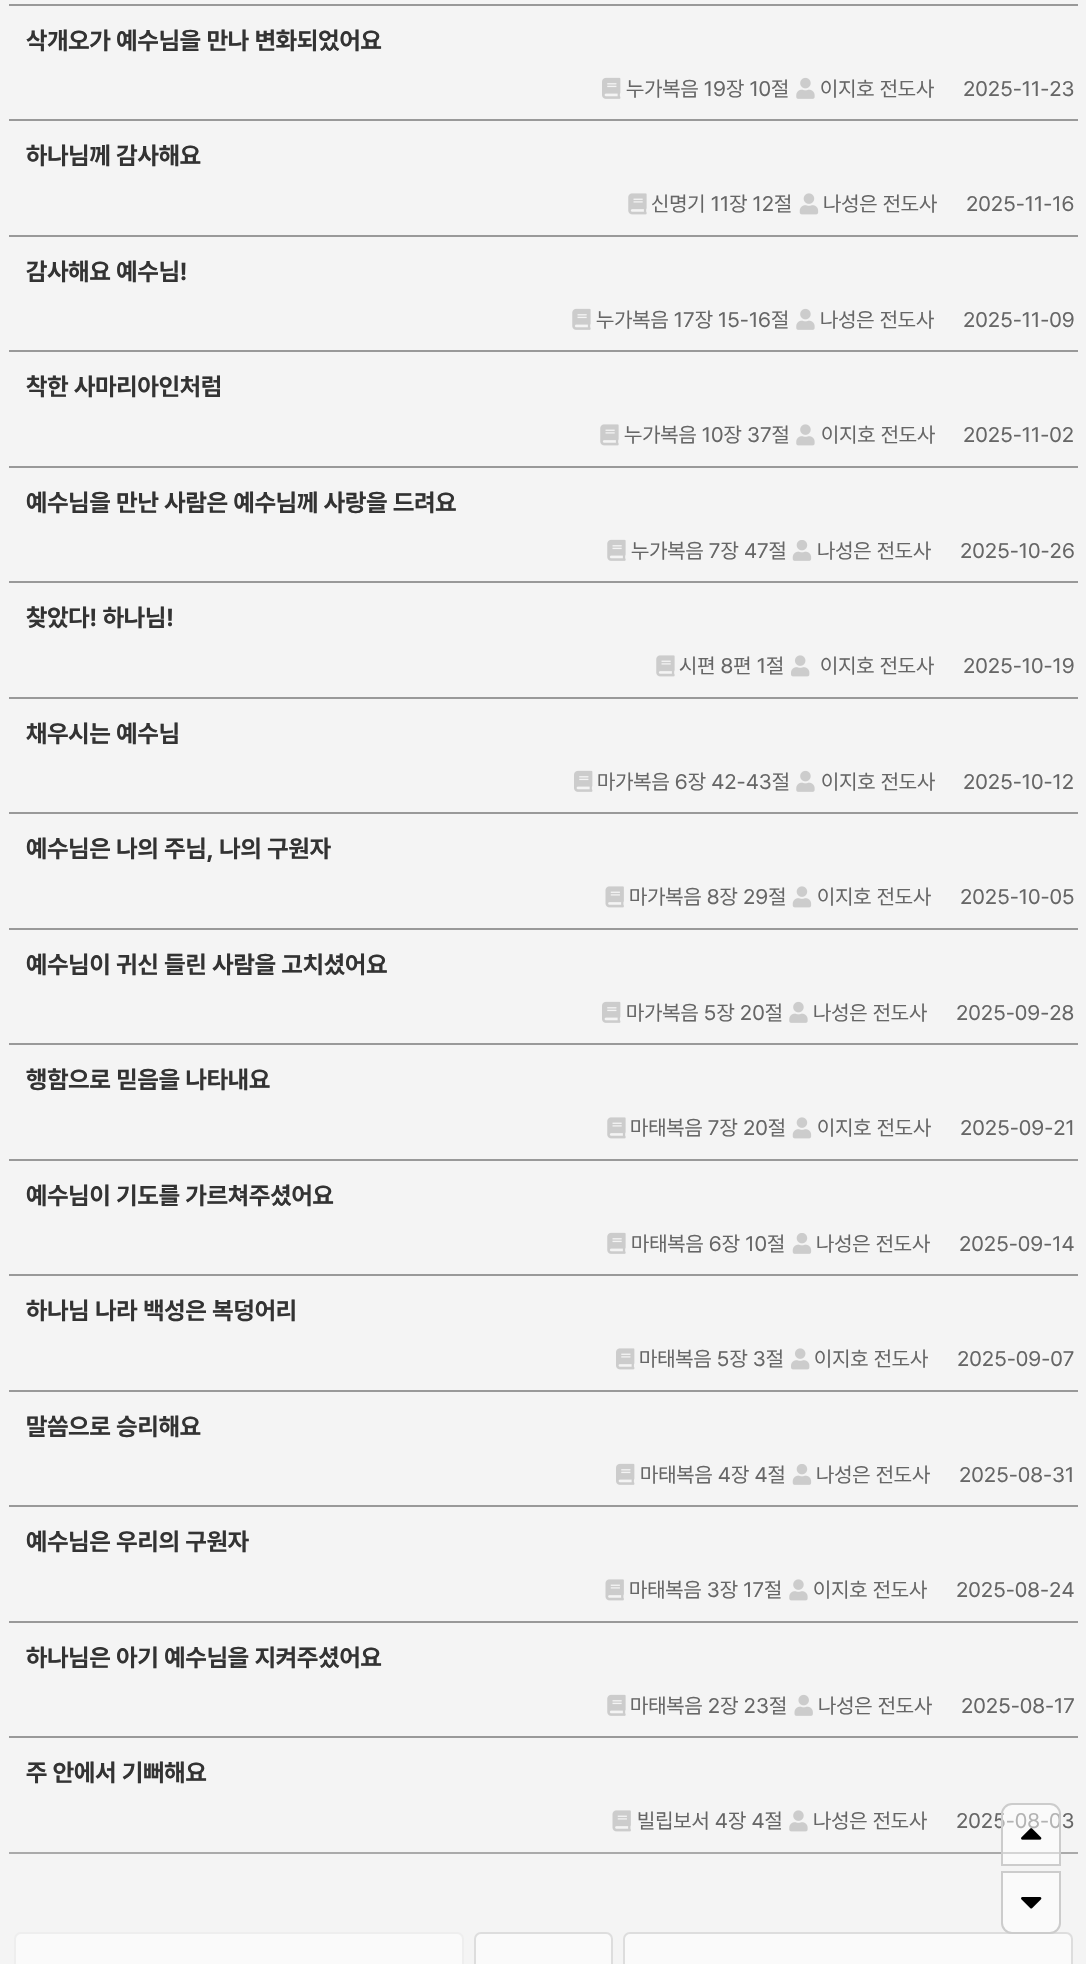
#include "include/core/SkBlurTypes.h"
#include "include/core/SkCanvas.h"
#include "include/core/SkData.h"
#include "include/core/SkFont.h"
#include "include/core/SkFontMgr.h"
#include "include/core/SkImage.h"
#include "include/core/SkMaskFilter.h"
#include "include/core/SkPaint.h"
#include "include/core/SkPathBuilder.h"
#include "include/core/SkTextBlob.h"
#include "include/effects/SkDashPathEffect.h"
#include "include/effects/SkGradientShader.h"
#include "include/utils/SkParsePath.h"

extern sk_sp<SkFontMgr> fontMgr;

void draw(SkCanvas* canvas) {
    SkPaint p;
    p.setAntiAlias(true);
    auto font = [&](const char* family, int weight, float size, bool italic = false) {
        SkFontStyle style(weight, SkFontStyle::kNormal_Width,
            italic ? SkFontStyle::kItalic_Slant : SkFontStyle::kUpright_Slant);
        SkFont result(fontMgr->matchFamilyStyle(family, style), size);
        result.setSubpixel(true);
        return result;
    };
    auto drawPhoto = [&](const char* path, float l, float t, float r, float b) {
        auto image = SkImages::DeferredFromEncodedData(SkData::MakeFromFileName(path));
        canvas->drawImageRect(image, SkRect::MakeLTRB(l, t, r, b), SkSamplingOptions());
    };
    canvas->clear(0xFFF4F4F4);
    p.setColor(0xFF999999);
    canvas->drawRect(SkRect::MakeLTRB(9, 4, 1078, 6), p);
    auto font1 = font("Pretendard", 700, 24.5f);
    p.setColor(0xFF333333);
    canvas->drawString("삭개오가 예수님을 만나 변화되었어요", 26, 49, font1, p);
    drawPhoto("media/1.png", 602, 77, 621, 99);
    auto font2 = font("Pretendard", 400, 21);
    p.setColor(0xFF666666);
    canvas->drawString("누가복음 19장 10절", 626, 96, font2, p);
    drawPhoto("media/2.png", 796, 77, 815, 99);
    canvas->drawString("이지호 전도사", 820, 96, font2, p);
    canvas->drawString("2025-11-23", 963, 96, font2, p);
    p.setColor(0xFF999999);
    canvas->drawRect(SkRect::MakeLTRB(9, 119, 1078, 121), p);
    p.setColor(0xFF333333);
    canvas->drawString("하나님께 감사해요", 26, 164, font1, p);
    drawPhoto("media/3.png", 628, 193, 647, 215);
    p.setColor(0xFF666666);
    canvas->drawString("신명기 11장 12절", 651, 211, font2, p);
    drawPhoto("media/4.png", 799, 193, 819, 215);
    canvas->drawString("나성은 전도사", 823, 211, font2, p);
    canvas->drawString("2025-11-16", 966, 211, font2, p);
    p.setColor(0xFF999999);
    canvas->drawRect(SkRect::MakeLTRB(9, 235, 1078, 237), p);
    p.setColor(0xFF333333);
    canvas->drawString("감사해요 예수님!", 26, 280, font1, p);
    drawPhoto("media/5.png", 572, 308, 591, 330);
    p.setColor(0xFF666666);
    canvas->drawString("누가복음 17장 15-16절", 596, 327, font2, p);
    drawPhoto("media/2.png", 796, 308, 815, 330);
    canvas->drawString("나성은 전도사", 820, 327, font2, p);
    canvas->drawString("2025-11-09", 963, 327, font2, p);
    p.setColor(0xFF999999);
    canvas->drawRect(SkRect::MakeLTRB(9, 350, 1078, 352), p);
    p.setColor(0xFF333333);
    canvas->drawString("착한 사마리아인처럼", 26, 395, font1, p);
    drawPhoto("media/3.png", 600, 424, 619, 446);
    p.setColor(0xFF666666);
    canvas->drawString("누가복음 10장 37절", 624, 442, font2, p);
    drawPhoto("media/6.png", 796, 424, 815, 446);
    canvas->drawString("이지호 전도사", 821, 442, font2, p);
    canvas->drawString("2025-11-02", 963, 442, font2, p);
    p.setColor(0xFF999999);
    canvas->drawRect(SkRect::MakeLTRB(9, 466, 1078, 468), p);
    p.setColor(0xFF333333);
    canvas->drawString("예수님을 만난 사람은 예수님께 사랑을 드려요", 26, 511, font1, p);
    drawPhoto("media/5.png", 607, 539, 626, 561);
    p.setColor(0xFF666666);
    canvas->drawString("누가복음 7장 47절", 631, 558, font2, p);
    drawPhoto("media/7.png", 792, 540, 812, 561);
    canvas->drawString("나성은 전도사", 817, 558, font2, p);
    canvas->drawString("2025-10-26", 960, 558, font2, p);
    p.setColor(0xFF999999);
    canvas->drawRect(SkRect::MakeLTRB(9, 581, 1078, 583), p);
    p.setColor(0xFF333333);
    canvas->drawString("찾았다! 하나님!", 26, 626, font1, p);
    drawPhoto("media/3.png", 656, 655, 675, 677);
    p.setColor(0xFF666666);
    canvas->drawString("시편 8편 1절", 679, 673, font2, p);
    drawPhoto("media/8.png", 791, 655, 810, 677);
    canvas->drawString("이지호 전도사", 820, 673, font2, p);
    canvas->drawString("2025-10-19", 963, 673, font2, p);
    p.setColor(0xFF999999);
    canvas->drawRect(SkRect::MakeLTRB(9, 697, 1078, 699), p);
    p.setColor(0xFF333333);
    canvas->drawString("채우시는 예수님", 26, 742, font1, p);
    drawPhoto("media/1.png", 574, 770, 593, 792);
    p.setColor(0xFF666666);
    canvas->drawString("마가복음 6장 42-43절", 597, 789, font2, p);
    drawPhoto("media/2.png", 796, 770, 815, 792);
    canvas->drawString("이지호 전도사", 821, 789, font2, p);
    canvas->drawString("2025-10-12", 963, 789, font2, p);
    p.setColor(0xFF999999);
    canvas->drawRect(SkRect::MakeLTRB(9, 812, 1078, 814), p);
    p.setColor(0xFF333333);
    canvas->drawString("예수님은 나의 주님, 나의 구원자", 26, 857, font1, p);
    drawPhoto("media/9.png", 605, 886, 624, 908);
    p.setColor(0xFF666666);
    canvas->drawString("마가복음 8장 29절", 629, 904, font2, p);
    drawPhoto("media/4.png", 792, 886, 812, 908);
    canvas->drawString("이지호 전도사", 817, 904, font2, p);
    canvas->drawString("2025-10-05", 960, 904, font2, p);
    p.setColor(0xFF999999);
    canvas->drawRect(SkRect::MakeLTRB(9, 928, 1078, 930), p);
    p.setColor(0xFF333333);
    canvas->drawString("예수님이 귀신 들린 사람을 고치셨어요", 26, 973, font1, p);
    drawPhoto("media/1.png", 602, 1001, 621, 1023);
    p.setColor(0xFF666666);
    canvas->drawString("마가복음 5장 20절", 626, 1020, font2, p);
    drawPhoto("media/2.png", 789, 1001, 808, 1023);
    canvas->drawString("나성은 전도사", 813, 1020, font2, p);
    canvas->drawString("2025-09-28", 956, 1020, font2, p);
    p.setColor(0xFF999999);
    canvas->drawRect(SkRect::MakeLTRB(9, 1043, 1078, 1045), p);
    p.setColor(0xFF333333);
    canvas->drawString("행함으로 믿음을 나타내요", 26, 1088, font1, p);
    drawPhoto("media/3.png", 607, 1117, 626, 1139);
    p.setColor(0xFF666666);
    canvas->drawString("마태복음 7장 20절", 630, 1135, font2, p);
    drawPhoto("media/4.png", 792, 1117, 812, 1139);
    canvas->drawString("이지호 전도사", 817, 1135, font2, p);
    canvas->drawString("2025-09-21", 960, 1135, font2, p);
    p.setColor(0xFF999999);
    canvas->drawRect(SkRect::MakeLTRB(9, 1159, 1078, 1161), p);
    p.setColor(0xFF333333);
    canvas->drawString("예수님이 기도를 가르쳐주셨어요", 26, 1204, font1, p);
    drawPhoto("media/5.png", 607, 1232, 626, 1254);
    p.setColor(0xFF666666);
    canvas->drawString("마태복음 6장 10절", 631, 1251, font2, p);
    drawPhoto("media/7.png", 792, 1233, 812, 1254);
    canvas->drawString("나성은 전도사", 816, 1251, font2, p);
    canvas->drawString("2025-09-14", 959, 1251, font2, p);
    p.setColor(0xFF999999);
    canvas->drawRect(SkRect::MakeLTRB(9, 1274, 1078, 1276), p);
    p.setColor(0xFF333333);
    canvas->drawString("하나님 나라 백성은 복덩어리", 26, 1319, font1, p);
    drawPhoto("media/10.png", 616, 1348, 635, 1370);
    p.setColor(0xFF666666);
    canvas->drawString("마태복음 5장 3절", 639, 1366, font2, p);
    drawPhoto("media/8.png", 791, 1348, 810, 1370);
    canvas->drawString("이지호 전도사", 814, 1366, font2, p);
    canvas->drawString("2025-09-07", 957, 1366, font2, p);
    p.setColor(0xFF999999);
    canvas->drawRect(SkRect::MakeLTRB(9, 1390, 1078, 1392), p);
    p.setColor(0xFF333333);
    canvas->drawString("말씀으로 승리해요", 26, 1435, font1, p);
    drawPhoto("media/1.png", 616, 1463, 635, 1485);
    p.setColor(0xFF666666);
    canvas->drawString("마태복음 4장 4절", 640, 1482, font2, p);
    drawPhoto("media/7.png", 792, 1464, 812, 1485);
    canvas->drawString("나성은 전도사", 816, 1482, font2, p);
    canvas->drawString("2025-08-31", 959, 1482, font2, p);
    p.setColor(0xFF999999);
    canvas->drawRect(SkRect::MakeLTRB(9, 1505, 1078, 1507), p);
    p.setColor(0xFF333333);
    canvas->drawString("예수님은 우리의 구원자", 26, 1550, font1, p);
    drawPhoto("media/9.png", 605, 1579, 624, 1601);
    p.setColor(0xFF666666);
    canvas->drawString("마태복음 3장 17절", 629, 1597, font2, p);
    drawPhoto("media/6.png", 789, 1579, 808, 1601);
    canvas->drawString("이지호 전도사", 813, 1597, font2, p);
    canvas->drawString("2025-08-24", 956, 1597, font2, p);
    p.setColor(0xFF999999);
    canvas->drawRect(SkRect::MakeLTRB(9, 1621, 1078, 1623), p);
    p.setColor(0xFF333333);
    canvas->drawString("하나님은 아기 예수님을 지켜주셨어요", 26, 1666, font1, p);
    drawPhoto("media/5.png", 607, 1694, 626, 1716);
    p.setColor(0xFF666666);
    canvas->drawString("마태복음 2장 23절", 630, 1713, font2, p);
    drawPhoto("media/11.png", 794, 1694, 813, 1716);
    canvas->drawString("나성은 전도사", 818, 1713, font2, p);
    canvas->drawString("2025-08-17", 961, 1713, font2, p);
    p.setColor(0xFFAAAAAA);
    canvas->drawRect(SkRect::MakeLTRB(9, 1852, 1078, 1854), p);
    p.setColor(0xFF999999);
    canvas->drawRect(SkRect::MakeLTRB(9, 1736, 1078, 1738), p);
    p.setColor(0xFF333333);
    canvas->drawString("주 안에서 기뻐해요", 26, 1781, font1, p);
    drawPhoto("media/9.png", 612, 1810, 631, 1832);
    p.setColor(0xFF666666);
    canvas->drawString("빌립보서 4장 4절", 637, 1828, font2, p);
    drawPhoto("media/6.png", 789, 1810, 808, 1832);
    canvas->drawString("나성은 전도사", 813, 1828, font2, p);
    canvas->drawString("2025-08-03", 956, 1828, font2, p);
    p.setColor(0xFFFAFAFA);
    canvas->drawRoundRect(SkRect::MakeLTRB(15, 1933, 463, 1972), 6, 6, p);
    p.setStyle(SkPaint::kStroke_Style);
    p.setStrokeWidth(2);
    p.setColor(0xFFEEEEEE);
    canvas->drawRoundRect(SkRect::MakeLTRB(15, 1933, 463, 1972), 6, 6, p);
    p.setStyle(SkPaint::kFill_Style);
    p.setColor(0xFFFAFAFA);
    canvas->drawRoundRect(SkRect::MakeLTRB(475, 1933, 612, 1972), 6, 6, p);
    p.setStyle(SkPaint::kStroke_Style);
    p.setColor(0xFFDDDDDD);
    canvas->drawRoundRect(SkRect::MakeLTRB(475, 1933, 612, 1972), 6, 6, p);
    p.setStyle(SkPaint::kFill_Style);
    p.setColor(0xFFFAFAFA);
    canvas->drawRoundRect(SkRect::MakeLTRB(624, 1933, 1072, 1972), 6, 6, p);
    p.setStyle(SkPaint::kStroke_Style);
    p.setColor(0xFFDDDDDD);
    canvas->drawRoundRect(SkRect::MakeLTRB(624, 1933, 1072, 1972), 6, 6, p);
    p.setStyle(SkPaint::kFill_Style);
    p.setColor(0x80FFFFFF);
    canvas->drawPath(SkPathBuilder().moveTo(1012, 1804).lineTo(1050, 1804).cubicTo(1055.5f, 1804, 1060, 1808.5f, 1060, 1814).lineTo(1060, 1865).lineTo(1002, 1865).lineTo(1002, 1814).cubicTo(1002, 1808.5f, 1006.5f, 1804, 1012, 1804).close().detach(), p);
    p.setStyle(SkPaint::kStroke_Style);
    p.setColor(0xFFCCCCCC);
    canvas->drawPath(SkPathBuilder().moveTo(1012, 1804).lineTo(1050, 1804).cubicTo(1055.5f, 1804, 1060, 1808.5f, 1060, 1814).lineTo(1060, 1865).lineTo(1002, 1865).lineTo(1002, 1814).cubicTo(1002, 1808.5f, 1006.5f, 1804, 1012, 1804).close().detach(), p);
    drawPhoto("media/12.png", 1021, 1828, 1042, 1840);
    p.setStyle(SkPaint::kFill_Style);
    p.setColor(0x80FFFFFF);
    canvas->drawPath(SkPathBuilder().moveTo(1002, 1872).lineTo(1060, 1872).lineTo(1060, 1923).cubicTo(1060, 1928.5f, 1055.5f, 1933, 1050, 1933).lineTo(1012, 1933).cubicTo(1006.5f, 1933, 1002, 1928.5f, 1002, 1923).close().detach(), p);
    p.setStyle(SkPaint::kStroke_Style);
    p.setColor(0xFFCCCCCC);
    canvas->drawPath(SkPathBuilder().moveTo(1002, 1872).lineTo(1060, 1872).lineTo(1060, 1923).cubicTo(1060, 1928.5f, 1055.5f, 1933, 1050, 1933).lineTo(1012, 1933).cubicTo(1006.5f, 1933, 1002, 1928.5f, 1002, 1923).close().detach(), p);
    drawPhoto("media/13.png", 1021, 1897, 1042, 1909);
}
